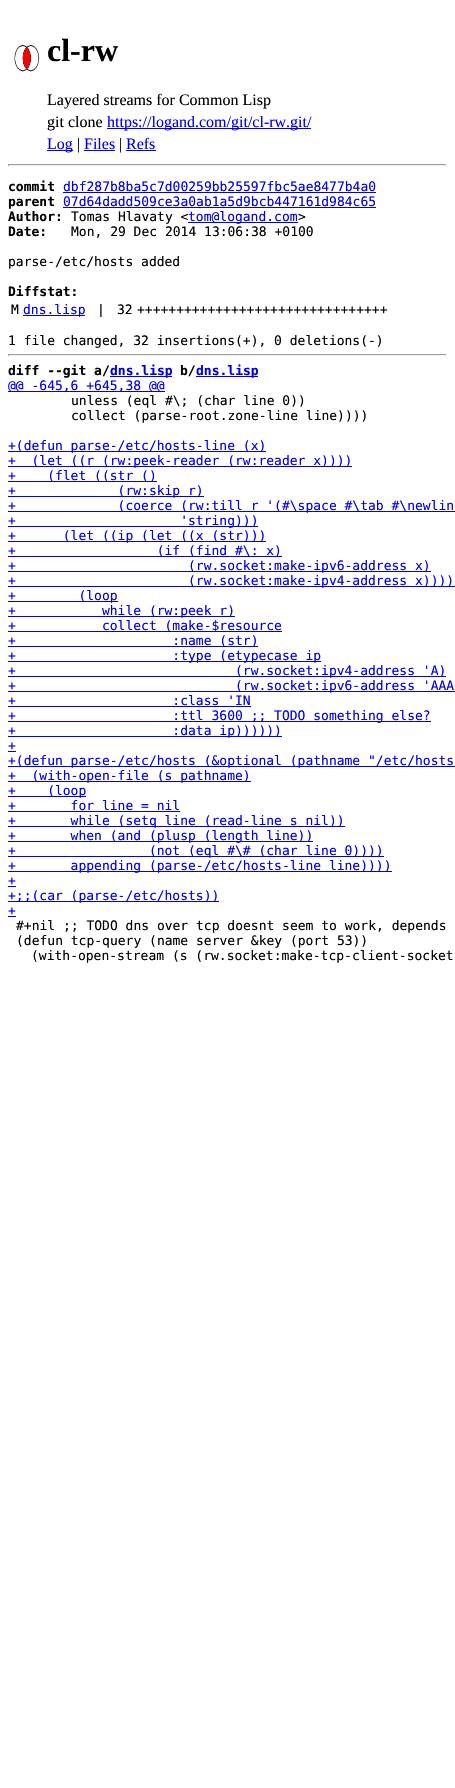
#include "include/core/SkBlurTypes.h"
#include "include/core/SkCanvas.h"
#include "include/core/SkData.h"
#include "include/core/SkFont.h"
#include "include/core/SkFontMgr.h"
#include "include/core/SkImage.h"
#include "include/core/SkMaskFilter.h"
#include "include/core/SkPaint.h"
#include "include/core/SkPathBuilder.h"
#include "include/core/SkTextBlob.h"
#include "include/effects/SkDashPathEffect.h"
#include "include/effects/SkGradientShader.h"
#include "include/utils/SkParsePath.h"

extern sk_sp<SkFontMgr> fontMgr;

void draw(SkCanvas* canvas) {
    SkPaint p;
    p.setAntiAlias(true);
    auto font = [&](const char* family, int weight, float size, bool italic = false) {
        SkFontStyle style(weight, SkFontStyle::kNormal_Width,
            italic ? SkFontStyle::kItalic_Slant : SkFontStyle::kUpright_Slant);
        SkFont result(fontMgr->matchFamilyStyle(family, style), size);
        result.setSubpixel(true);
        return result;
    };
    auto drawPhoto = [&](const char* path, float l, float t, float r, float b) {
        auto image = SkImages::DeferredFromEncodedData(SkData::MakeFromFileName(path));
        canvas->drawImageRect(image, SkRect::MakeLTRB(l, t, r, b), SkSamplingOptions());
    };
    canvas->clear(0xFFFFFFFF);
    drawPhoto("media/1.png", 14, 44, 40, 72);
    auto font1 = font("Liberation Serif", 700, 32);
    p.setColor(0xFF000000);
    canvas->drawString("cl-rw", 47, 61, font1, p);
    auto font2 = font("Liberation Serif", 400, 16);
    canvas->drawString("Layered streams for Common Lisp", 47, 105, font2, p);
    canvas->drawString("git clone", 47, 127, font2, p);
    p.setColor(0xFF0000EE);
    canvas->drawRect(SkRect::MakeLTRB(107, 128, 311, 129), p);
    canvas->drawString("https://logand.com/git/cl-rw.git/", 107, 127, font2, p);
    canvas->drawRect(SkRect::MakeLTRB(47, 150, 73, 151), p);
    canvas->drawString("Log", 47, 149, font2, p);
    p.setColor(0xFF000000);
    canvas->drawString("|", 77, 149, font2, p);
    p.setColor(0xFF0000EE);
    canvas->drawString("Files", 84, 149, font2, p);
    canvas->drawRect(SkRect::MakeLTRB(84, 150, 115, 151), p);
    p.setColor(0xFF000000);
    canvas->drawString("|", 119, 149, font2, p);
    p.setColor(0xFF0000EE);
    canvas->drawString("Refs", 126, 149, font2, p);
    {
        const struct { float l, t, r, b; SkColor color; } items[] = {
            {126, 150, 156, 151, 0xFF0000EE},
            {8, 164, 447, 165, 0xFF9F9F9F},
            {446, 164, 447, 166, 0xFFEEEEEE},
            {8, 165, 447, 166, 0xFFEEEEEE},
            {8, 164, 9, 166, 0xFF9F9F9F},
        };
        for (auto [l, t, r, b, color] : items) {
            p.setColor(color);
            canvas->drawRect(SkRect::MakeLTRB(l, t, r, b), p);
        }
    }
    auto font3 = font("DejaVu Sans Mono", 700, 13);
    p.setColor(0xFF000000);
    canvas->drawString("commit", 8, 191, font3, p);
    auto font4 = font("DejaVu Sans Mono", 400, 13);
    p.setColor(0xFF0000EE);
    canvas->drawString("dbf287b8ba5c7d00259bb25597fbc5ae8477b4a0", 63, 191, font4, p);
    canvas->drawRect(SkRect::MakeLTRB(63, 192, 376, 193), p);
    p.setColor(0xFF000000);
    canvas->drawString("parent", 8, 206, font3, p);
    p.setColor(0xFF0000EE);
    canvas->drawString("07d64dadd509ce3a0ab1a5d9bcb447161d984c65", 63, 206, font4, p);
    canvas->drawRect(SkRect::MakeLTRB(63, 207, 376, 208), p);
    p.setColor(0xFF000000);
    canvas->drawString("Author:", 8, 221, font3, p);
    canvas->drawString("Tomas Hlavaty <", 71, 221, font4, p);
    p.setColor(0xFF0000EE);
    canvas->drawRect(SkRect::MakeLTRB(188, 222, 298, 223), p);
    canvas->drawString("tom@logand.com", 188, 221, font4, p);
    p.setColor(0xFF000000);
    canvas->drawString(">", 298, 221, font4, p);
    canvas->drawString("Date:", 8, 236, font3, p);
    canvas->drawString("Mon, 29 Dec 2014 13:06:38 +0100", 71, 236, font4, p);
    canvas->drawString("parse-/etc/hosts added", 8, 266, font4, p);
    canvas->drawString("Diffstat:", 8, 296, font3, p);
    canvas->drawString("M", 11, 314, font4, p);
    p.setColor(0xFF0000EE);
    canvas->drawRect(SkRect::MakeLTRB(23, 315, 85, 316), p);
    canvas->drawString("dns.lisp", 23, 314, font4, p);
    p.setColor(0xFF000000);
    {
        const struct { const char* s; float x, y; } items[] = {
            {"|", 97, 314},
            {"32", 117, 314},
            {"++++++++++++++++++++++++++++++++", 137, 314},
            {"1 file changed, 32 insertions(+), 0 deletions(-)", 8, 345},
        };
        for (auto [s, x, y] : items) {
            canvas->drawString(s, x, y, font4, p);
        }
    }
    {
        const struct { float l, t, r, b; SkColor color; } items[] = {
            {8, 354, 447, 355, 0xFF9F9F9F},
            {446, 354, 447, 356, 0xFFEEEEEE},
            {8, 355, 447, 356, 0xFFEEEEEE},
            {8, 354, 9, 356, 0xFF9F9F9F},
        };
        for (auto [l, t, r, b, color] : items) {
            p.setColor(color);
            canvas->drawRect(SkRect::MakeLTRB(l, t, r, b), p);
        }
    }
    p.setColor(0xFF000000);
    canvas->drawString("diff --git a/", 8, 375, font3, p);
    p.setColor(0xFF0000EE);
    canvas->drawRect(SkRect::MakeLTRB(110, 376, 172, 377), p);
    canvas->drawString("dns.lisp", 110, 375, font3, p);
    p.setColor(0xFF000000);
    canvas->drawString("b/", 180, 375, font3, p);
    p.setColor(0xFF0000EE);
    canvas->drawRect(SkRect::MakeLTRB(196, 376, 258, 377), p);
    canvas->drawString("dns.lisp", 196, 375, font3, p);
    canvas->drawRect(SkRect::MakeLTRB(8, 391, 165, 392), p);
    canvas->drawString("@@ -645,6 +645,38 @@", 8, 390, font4, p);
    p.setColor(0xFF000000);
    canvas->drawString("unless (eql #\\; (char line 0))", 71, 405, font4, p);
    canvas->drawString("collect (parse-root.zone-line line))))", 71, 420, font4, p);
    p.setColor(0xFF0000EE);
    canvas->drawRect(SkRect::MakeLTRB(8, 451, 266, 452), p);
    canvas->drawString("+(defun parse-/etc/hosts-line (x)", 8, 450, font4, p);
    canvas->drawRect(SkRect::MakeLTRB(8, 466, 352, 467), p);
    canvas->drawString("+  (let ((r (rw:peek-reader (rw:reader x))))", 8, 465, font4, p);
    canvas->drawRect(SkRect::MakeLTRB(8, 481, 157, 482), p);
    canvas->drawString("+    (flet ((str ()", 8, 480, font4, p);
    canvas->drawRect(SkRect::MakeLTRB(8, 496, 204, 497), p);
    canvas->drawString("+             (rw:skip r)", 8, 495, font4, p);
    canvas->drawRect(SkRect::MakeLTRB(8, 511, 455, 512), p);
    canvas->drawString("+             (coerce (rw:till r '(#\\space #\\tab #\\newlin", 8, 510, font4, p);
    canvas->drawRect(SkRect::MakeLTRB(8, 526, 258, 527), p);
    canvas->drawString("+                     'string)))", 8, 525, font4, p);
    canvas->drawRect(SkRect::MakeLTRB(8, 541, 266, 542), p);
    canvas->drawString("+      (let ((ip (let ((x (str)))", 8, 540, font4, p);
    canvas->drawRect(SkRect::MakeLTRB(8, 556, 282, 557), p);
    canvas->drawString("+                  (if (find #\\: x)", 8, 555, font4, p);
    canvas->drawRect(SkRect::MakeLTRB(8, 571, 431, 572), p);
    canvas->drawString("+                      (rw.socket:make-ipv6-address x)", 8, 570, font4, p);
    canvas->drawRect(SkRect::MakeLTRB(8, 586, 455, 587), p);
    canvas->drawString("+                      (rw.socket:make-ipv4-address x))))", 8, 585, font4, p);
    canvas->drawRect(SkRect::MakeLTRB(8, 601, 118, 602), p);
    canvas->drawString("+        (loop", 8, 600, font4, p);
    canvas->drawRect(SkRect::MakeLTRB(8, 616, 235, 617), p);
    canvas->drawString("+           while (rw:peek r)", 8, 615, font4, p);
    canvas->drawRect(SkRect::MakeLTRB(8, 631, 282, 632), p);
    canvas->drawString("+           collect (make-$resource", 8, 630, font4, p);
    canvas->drawRect(SkRect::MakeLTRB(8, 646, 258, 647), p);
    canvas->drawString("+                    :name (str)", 8, 645, font4, p);
    canvas->drawRect(SkRect::MakeLTRB(8, 661, 321, 662), p);
    canvas->drawString("+                    :type (etypecase ip", 8, 660, font4, p);
    canvas->drawRect(SkRect::MakeLTRB(8, 676, 446, 677), p);
    canvas->drawString("+                            (rw.socket:ipv4-address 'A)", 8, 675, font4, p);
    canvas->drawRect(SkRect::MakeLTRB(8, 691, 455, 692), p);
    canvas->drawString("+                            (rw.socket:ipv6-address 'AAA", 8, 690, font4, p);
    canvas->drawString("+                    :class 'IN", 8, 705, font4, p);
    canvas->drawRect(SkRect::MakeLTRB(8, 706, 251, 707), p);
    canvas->drawRect(SkRect::MakeLTRB(8, 721, 431, 722), p);
    canvas->drawString("+                    :ttl 3600 ;; TODO something else?", 8, 720, font4, p);
    canvas->drawRect(SkRect::MakeLTRB(8, 736, 282, 737), p);
    canvas->drawString("+                    :data ip))))))", 8, 735, font4, p);
    canvas->drawString("+", 8, 750, font4, p);
    canvas->drawRect(SkRect::MakeLTRB(8, 751, 16, 752), p);
    canvas->drawRect(SkRect::MakeLTRB(8, 766, 455, 767), p);
    canvas->drawString("+(defun parse-/etc/hosts (&optional (pathname \"/etc/hosts", 8, 765, font4, p);
    canvas->drawRect(SkRect::MakeLTRB(8, 781, 251, 782), p);
    canvas->drawString("+  (with-open-file (s pathname)", 8, 780, font4, p);
    canvas->drawRect(SkRect::MakeLTRB(8, 796, 86, 797), p);
    canvas->drawString("+    (loop", 8, 795, font4, p);
    canvas->drawString("+       for line = nil", 8, 810, font4, p);
    canvas->drawRect(SkRect::MakeLTRB(8, 811, 180, 812), p);
    canvas->drawRect(SkRect::MakeLTRB(8, 826, 345, 827), p);
    canvas->drawString("+       while (setq line (read-line s nil))", 8, 825, font4, p);
    canvas->drawRect(SkRect::MakeLTRB(8, 841, 313, 842), p);
    canvas->drawString("+       when (and (plusp (length line))", 8, 840, font4, p);
    canvas->drawRect(SkRect::MakeLTRB(8, 856, 384, 857), p);
    canvas->drawString("+                 (not (eql #\\# (char line 0))))", 8, 855, font4, p);
    canvas->drawRect(SkRect::MakeLTRB(8, 871, 392, 872), p);
    canvas->drawString("+       appending (parse-/etc/hosts-line line))))", 8, 870, font4, p);
    canvas->drawString("+", 8, 885, font4, p);
    canvas->drawRect(SkRect::MakeLTRB(8, 886, 16, 887), p);
    canvas->drawRect(SkRect::MakeLTRB(8, 901, 219, 902), p);
    canvas->drawString("+;;(car (parse-/etc/hosts))", 8, 900, font4, p);
    canvas->drawString("+", 8, 915, font4, p);
    canvas->drawRect(SkRect::MakeLTRB(8, 916, 16, 917), p);
    p.setColor(0xFF000000);
    {
        const struct { const char* s; float x, y; } items[] = {
            {"#+nil ;; TODO dns over tcp doesnt seem to work, depends", 16, 930},
            {"(defun tcp-query (name server &key (port 53))", 16, 945},
            {"(with-open-stream (s (rw.socket:make-tcp-client-socket", 31, 960},
        };
        for (auto [s, x, y] : items) {
            canvas->drawString(s, x, y, font4, p);
        }
    }
}
